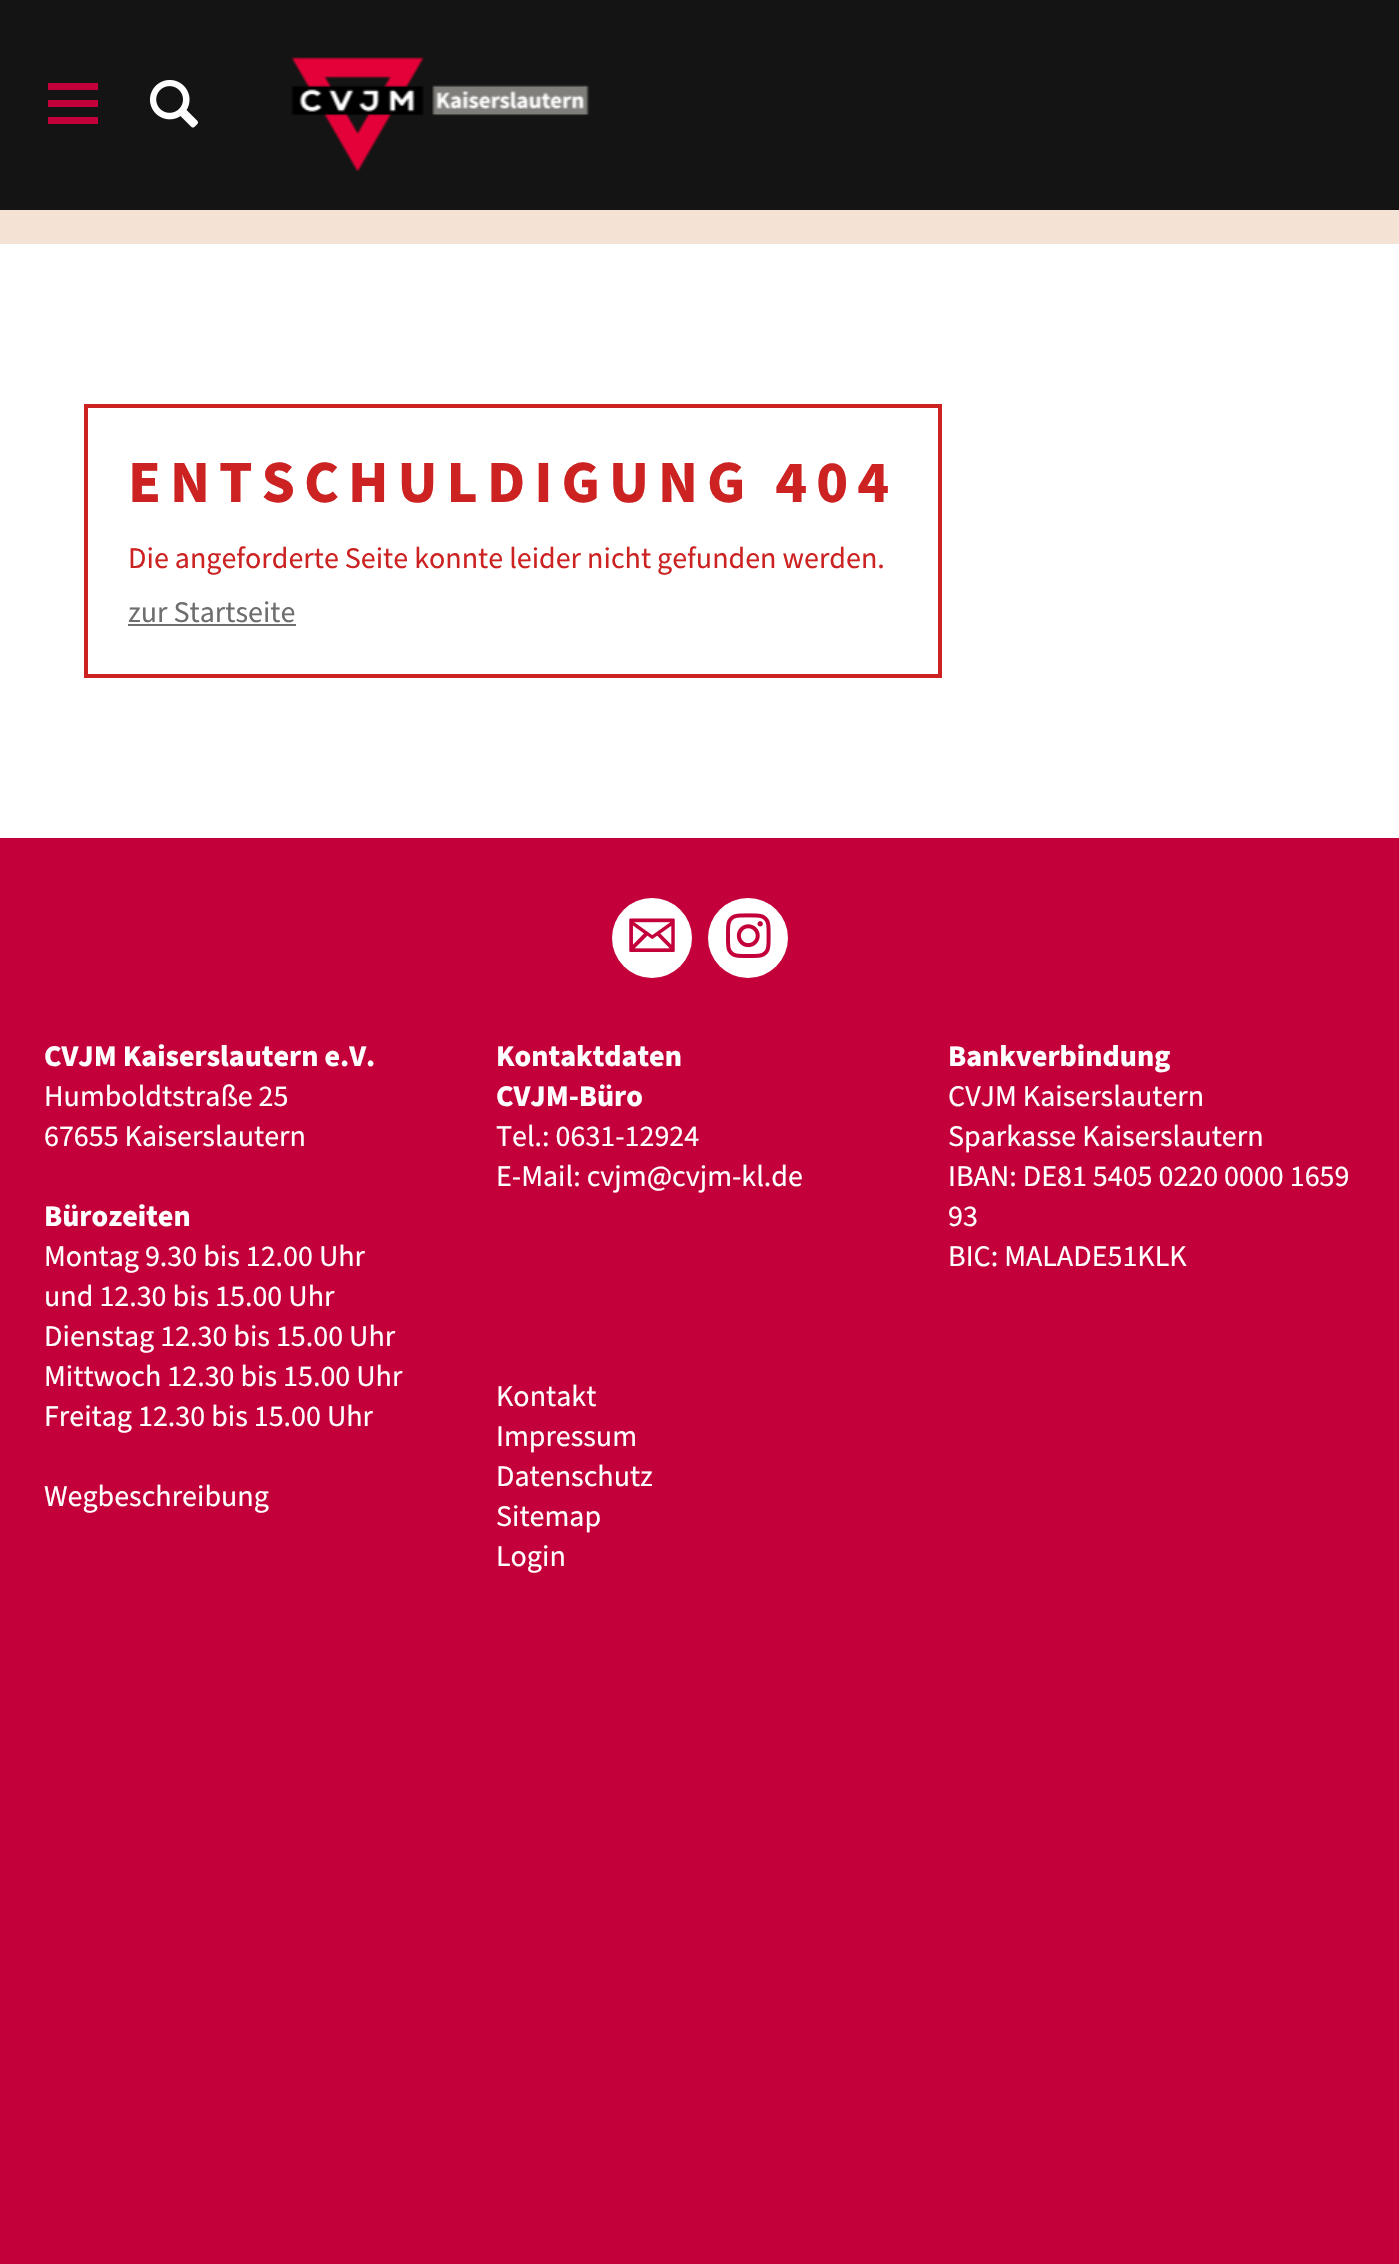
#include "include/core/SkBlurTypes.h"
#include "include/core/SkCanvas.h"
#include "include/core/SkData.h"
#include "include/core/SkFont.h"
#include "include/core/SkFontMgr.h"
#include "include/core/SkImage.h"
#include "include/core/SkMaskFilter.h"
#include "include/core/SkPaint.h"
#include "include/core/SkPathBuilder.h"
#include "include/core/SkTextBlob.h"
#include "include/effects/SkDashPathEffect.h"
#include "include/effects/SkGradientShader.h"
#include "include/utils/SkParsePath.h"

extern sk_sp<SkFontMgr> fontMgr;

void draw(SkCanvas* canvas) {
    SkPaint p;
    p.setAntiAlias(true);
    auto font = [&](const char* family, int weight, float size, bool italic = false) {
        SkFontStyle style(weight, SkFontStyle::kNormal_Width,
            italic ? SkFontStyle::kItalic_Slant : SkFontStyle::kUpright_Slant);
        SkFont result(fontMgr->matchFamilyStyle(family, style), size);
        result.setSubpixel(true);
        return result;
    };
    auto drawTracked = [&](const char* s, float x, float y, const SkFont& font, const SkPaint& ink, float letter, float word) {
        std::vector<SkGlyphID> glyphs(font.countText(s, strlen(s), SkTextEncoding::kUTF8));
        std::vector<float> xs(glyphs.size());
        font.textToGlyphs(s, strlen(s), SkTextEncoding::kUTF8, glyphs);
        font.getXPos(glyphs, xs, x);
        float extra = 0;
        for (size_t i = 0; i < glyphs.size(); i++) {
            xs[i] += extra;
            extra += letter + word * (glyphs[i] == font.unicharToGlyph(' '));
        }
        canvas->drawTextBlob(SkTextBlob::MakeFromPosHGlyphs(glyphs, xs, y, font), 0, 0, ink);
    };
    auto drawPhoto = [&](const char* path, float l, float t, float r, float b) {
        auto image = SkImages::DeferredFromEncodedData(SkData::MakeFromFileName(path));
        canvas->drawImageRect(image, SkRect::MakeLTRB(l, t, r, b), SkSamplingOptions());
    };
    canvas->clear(0xFFC30039);
    p.setColor(0xFF141414);
    canvas->drawRect(SkRect::MakeLTRB(0, 0, 1399, 210), p);
    p.setColor(0xFFC30039);
    canvas->drawPath(SkPathBuilder().moveTo(98, 117).lineTo(98, 124).lineTo(48, 124).lineTo(48, 117).close().moveTo(48, 100).lineTo(98, 100).lineTo(98, 107).lineTo(48, 107).close().moveTo(48, 83).lineTo(98, 83).lineTo(98, 90).lineTo(48, 90).close().detach(), p);
    drawPhoto("media/1.png", 150, 80, 198, 128);
    drawPhoto("media/2.png", 291, 57, 590, 172);
    p.setColor(0xFFF4E2D5);
    canvas->drawRect(SkRect::MakeLTRB(0, 210, 1399, 244), p);
    p.setColor(0xFFFFFFFF);
    canvas->drawRect(SkRect::MakeLTRB(0, 244, 1399, 838), p);
    p.setStyle(SkPaint::kStroke_Style);
    p.setStrokeWidth(4);
    p.setColor(0xFFCC2222);
    canvas->drawRect(SkRect::MakeLTRB(86, 406, 940, 676), p);
    auto font1 = font("Source Sans Pro", 700, 60);
    p.setStyle(SkPaint::kFill_Style);
    drawTracked("ENTSCHULDIGUNG 404", 128, 502, font1, p, 9, 0);
    auto font2 = font("Source Sans Pro", 400, 30);
    canvas->drawString("Die angeforderte Seite konnte leider nicht gefunden werden.", 128, 568, font2, p);
    p.setColor(0xFF6D6E70);
    canvas->drawString("zur Startseite", 128, 622, font2, p);
    canvas->drawRect(SkRect::MakeLTRB(128, 624, 296, 626), p);
    p.setColor(0xFFFFFFFF);
    canvas->drawCircle(652, 938, 40, p);
    drawPhoto("media/3.png", 629, 918, 675, 952);
    canvas->drawCircle(748, 938, 40, p);
    drawPhoto("media/4.png", 726, 913, 771, 958);
    auto font3 = font("Source Sans Pro", 700, 30);
    canvas->drawString("CVJM Kaiserslautern e.V.", 44, 1066, font3, p);
    canvas->drawString("Humboldtstraße 25", 44, 1106, font2, p);
    canvas->drawString("67655 Kaiserslautern", 44, 1146, font2, p);
    canvas->drawString("Bürozeiten", 44, 1226, font3, p);
    {
        const struct { const char* s; float x, y; } items[] = {
            {"Montag 9.30 bis 12.00 Uhr", 44, 1266},
            {"und 12.30 bis 15.00 Uhr", 44, 1306},
            {"Dienstag 12.30 bis 15.00 Uhr", 44, 1346},
            {"Mittwoch 12.30 bis 15.00 Uhr", 44, 1386},
            {"Freitag 12.30 bis 15.00 Uhr", 44, 1426},
            {"Wegbeschreibung", 44, 1506},
        };
        for (auto [s, x, y] : items) {
            canvas->drawString(s, x, y, font2, p);
        }
    }
    canvas->drawString("Kontaktdaten", 496, 1066, font3, p);
    canvas->drawString("CVJM-Büro", 496, 1106, font3, p);
    canvas->drawString("Tel.: 0631-12924", 496, 1146, font2, p);
    canvas->drawString("E-Mail: cvjm@cvjm-kl.de", 496, 1186, font2, p);
    canvas->drawString("Bankverbindung", 948, 1066, font3, p);
    {
        const struct { const char* s; float x, y; } items[] = {
            {"CVJM Kaiserslautern", 948, 1106},
            {"Sparkasse Kaiserslautern", 948, 1146},
            {"IBAN: DE81 5405 0220 0000 1659", 948, 1186},
            {"93", 948, 1226},
            {"BIC: MALADE51KLK", 948, 1266},
            {"Kontakt", 496, 1406},
            {"Impressum", 496, 1446},
            {"Datenschutz", 496, 1486},
            {"Sitemap", 496, 1526},
            {"Login", 496, 1566},
        };
        for (auto [s, x, y] : items) {
            canvas->drawString(s, x, y, font2, p);
        }
    }
}
